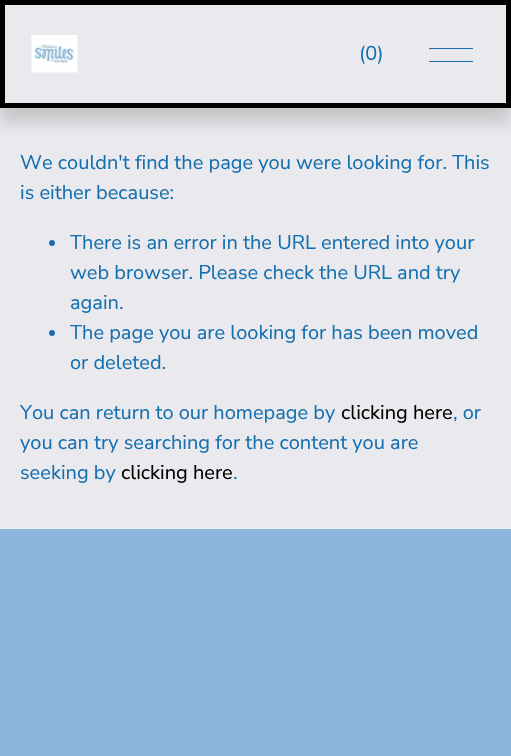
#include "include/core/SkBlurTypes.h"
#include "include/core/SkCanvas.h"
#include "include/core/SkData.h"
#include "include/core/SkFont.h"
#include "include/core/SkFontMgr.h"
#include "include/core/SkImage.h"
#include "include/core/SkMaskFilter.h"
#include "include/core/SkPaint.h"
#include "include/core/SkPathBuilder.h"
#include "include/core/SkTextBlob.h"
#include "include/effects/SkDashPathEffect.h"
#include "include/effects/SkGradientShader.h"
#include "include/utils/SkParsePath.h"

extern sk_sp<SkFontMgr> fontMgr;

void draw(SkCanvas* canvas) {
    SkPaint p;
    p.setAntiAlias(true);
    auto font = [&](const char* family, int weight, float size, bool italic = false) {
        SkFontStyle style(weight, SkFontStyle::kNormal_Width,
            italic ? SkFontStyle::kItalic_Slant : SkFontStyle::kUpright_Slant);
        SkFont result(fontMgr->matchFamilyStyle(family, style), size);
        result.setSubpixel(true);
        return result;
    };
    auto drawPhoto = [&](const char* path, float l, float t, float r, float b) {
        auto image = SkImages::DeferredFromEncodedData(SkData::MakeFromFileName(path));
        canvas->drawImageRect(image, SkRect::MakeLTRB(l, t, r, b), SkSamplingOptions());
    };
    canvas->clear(0xFFEAEAEE);
    canvas->save();
    canvas->clipRect(SkRect::MakeLTRB(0, 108, 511, 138));
    p.setColor(0xFFC7C7CA);
    p.setMaskFilter(SkMaskFilter::MakeBlur(kNormal_SkBlurStyle, 7.5f));
    canvas->drawRect(SkRect::MakeLTRB(0, 15, 511, 123), p);
    p.setMaskFilter(nullptr);
    canvas->restore();
    p.setStyle(SkPaint::kStroke_Style);
    p.setStrokeWidth(5);
    p.setColor(0xFF000000);
    canvas->drawRect(SkRect::MakeLTRB(2.5f, 2.5f, 508.5f, 105.5f), p);
    drawPhoto("media/1.png", 31, 35, 78, 73);
    auto font1 = font("Nunito Sans", 400, 20);
    p.setStyle(SkPaint::kFill_Style);
    p.setColor(0xFF1470AF);
    canvas->drawString("(0)", 359, 60, font1, p);
    canvas->drawRect(SkRect::MakeLTRB(429, 48, 473, 49), p);
    canvas->drawRect(SkRect::MakeLTRB(429, 61, 473, 62), p);
    canvas->drawString("We couldn't find the page you were looking for. This", 20, 169, font1, p);
    canvas->drawString("is either because:", 20, 199, font1, p);
    canvas->drawCircle(52, 243, 3, p);
    {
        const struct { const char* s; float x, y; } items[] = {
            {"There is an error in the URL entered into your", 70, 249},
            {"web browser. Please check the URL and try", 70, 279},
            {"again.", 70, 309},
        };
        for (auto [s, x, y] : items) {
            canvas->drawString(s, x, y, font1, p);
        }
    }
    canvas->drawCircle(52, 333, 3, p);
    {
        const struct { const char* s; float x, y; } items[] = {
            {"The page you are looking for has been moved", 70, 339},
            {"or deleted.", 70, 369},
            {"You can return to our homepage by", 20, 419},
        };
        for (auto [s, x, y] : items) {
            canvas->drawString(s, x, y, font1, p);
        }
    }
    p.setColor(0xFF000000);
    canvas->drawString("clicking here", 341, 419, font1, p);
    p.setColor(0xFF1470AF);
    {
        const struct { const char* s; float x, y; } items[] = {
            {", or", 453, 419},
            {"you can try searching for the content you are", 20, 449},
            {"seeking by", 20, 479},
        };
        for (auto [s, x, y] : items) {
            canvas->drawString(s, x, y, font1, p);
        }
    }
    p.setColor(0xFF000000);
    canvas->drawString("clicking here", 121, 479, font1, p);
    p.setColor(0xFF1470AF);
    canvas->drawString(".", 233, 479, font1, p);
    p.setColor(0xFF8EB6DC);
    canvas->drawRect(SkRect::MakeLTRB(0, 529, 511, 756), p);
}
